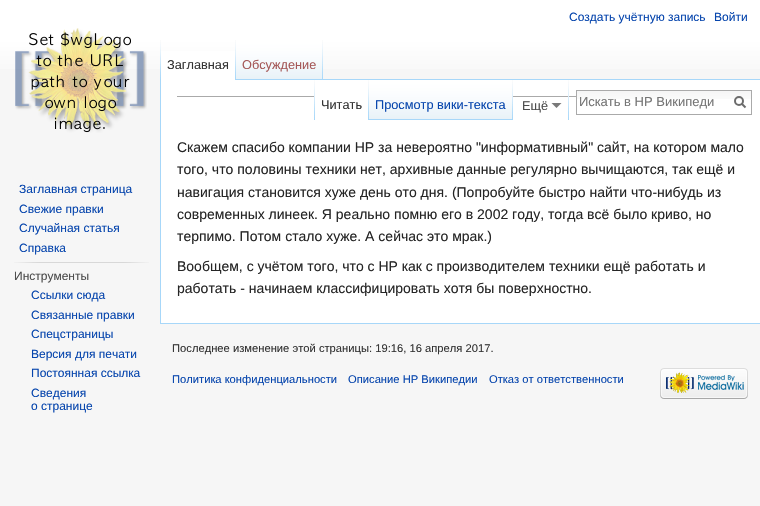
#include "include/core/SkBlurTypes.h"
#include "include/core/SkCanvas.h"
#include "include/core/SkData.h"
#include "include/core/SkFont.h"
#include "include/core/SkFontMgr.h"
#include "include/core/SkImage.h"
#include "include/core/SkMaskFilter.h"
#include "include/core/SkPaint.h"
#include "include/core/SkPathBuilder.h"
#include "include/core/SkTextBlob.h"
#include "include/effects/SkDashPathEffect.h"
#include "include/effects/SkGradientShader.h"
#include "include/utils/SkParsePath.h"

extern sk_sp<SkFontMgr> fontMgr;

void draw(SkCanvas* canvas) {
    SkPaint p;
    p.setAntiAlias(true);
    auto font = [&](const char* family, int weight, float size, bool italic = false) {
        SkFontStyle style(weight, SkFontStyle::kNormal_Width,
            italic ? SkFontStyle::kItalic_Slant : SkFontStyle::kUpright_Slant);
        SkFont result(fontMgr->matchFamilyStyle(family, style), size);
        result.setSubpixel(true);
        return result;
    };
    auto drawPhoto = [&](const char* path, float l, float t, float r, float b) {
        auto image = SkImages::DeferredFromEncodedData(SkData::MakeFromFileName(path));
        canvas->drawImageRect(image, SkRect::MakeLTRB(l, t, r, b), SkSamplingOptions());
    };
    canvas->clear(0xFFF6F6F6);
    {
        const SkColor colors[] = {0xFFFFFFFF, 0xFFF6F6F6};
        const float stops[] = {0.5f, 1};
        const SkPoint ends[] = {{380, 0}, {380, 80}};
        p.setShader(SkGradientShader::MakeLinear(ends, colors, stops, 2, SkTileMode::kClamp));
        p.setAlpha(255);
    }
    canvas->drawRect(SkRect::MakeLTRB(0, 0, 760, 69), p);
    auto font1 = font("Liberation Sans", 400, 12);
    p.setShader(nullptr);
    p.setColor(0xFF0645AD);
    canvas->drawString("Создать учётную запись", 569, 21, font1, p);
    canvas->drawString("Войти", 714, 21, font1, p);
    drawPhoto("media/1.png", 160, 40, 161, 79);
    p.setColor(0xFFFFFFFF);
    canvas->drawRect(SkRect::MakeLTRB(161, 51, 235, 80), p);
    drawPhoto("media/2.png", 235, 40, 236, 80);
    auto font2 = font("Liberation Sans", 400, 12.75f);
    p.setColor(0xFF333333);
    canvas->drawString("Заглавная", 167, 69, font2, p);
    drawPhoto("media/3.png", 236, 40, 323, 80);
    drawPhoto("media/4.png", 322, 40, 323, 79);
    p.setColor(0xFFA55858);
    canvas->drawString("Обсуждение", 242, 69, font2, p);
    p.setColor(0xFFFFFFFF);
    canvas->drawRect(SkRect::MakeLTRB(161, 80, 760, 323), p);
    p.setColor(0xFFAAAAAA);
    canvas->drawRect(SkRect::MakeLTRB(177, 96, 576, 97), p);
    drawPhoto("media/5.png", 314, 80, 315, 120);
    p.setColor(0xFFFFFFFF);
    canvas->drawRect(SkRect::MakeLTRB(315, 96, 368, 97), p);
    drawPhoto("media/2.png", 368, 80, 369, 120);
    p.setColor(0xFF333333);
    canvas->drawString("Читать", 321, 109, font2, p);
    drawPhoto("media/6.png", 369, 80, 513, 120);
    drawPhoto("media/4.png", 512, 80, 513, 119);
    p.setColor(0xFF0645AD);
    canvas->drawString("Просмотр вики-текста", 375, 109, font2, p);
    drawPhoto("media/5.png", 568, 80, 569, 120);
    p.setColor(0xFF4D4D4D);
    canvas->drawString("Ещё", 522, 110, font2, p);
    p.setColor(0xFF797979);
    canvas->drawPath(SkPathBuilder().moveTo(561.5f, 103).lineTo(556.5f, 108).lineTo(551.5f, 103).close().detach(), p);
    drawPhoto("media/7.png", 577, 91, 751, 99);
    p.setStyle(SkPaint::kStroke_Style);
    p.setStrokeWidth(1);
    p.setColor(0xFFAAAAAA);
    canvas->drawRect(SkRect::MakeLTRB(576.5f, 90.5f, 751.5f, 114.5f), p);
    auto font3 = font("Liberation Sans", 400, 13);
    p.setStyle(SkPaint::kFill_Style);
    p.setColor(0xFF757575);
    canvas->drawString("Искать в HP Википеди", 579, 106, font3, p);
    p.setStyle(SkPaint::kStroke_Style);
    p.setStrokeWidth(2);
    p.setColor(0xFF6C6C6C);
    canvas->drawPath(SkPathBuilder().moveTo(745.5f, 107.5f).lineTo(741.5f, 103.5f).detach(), p);
    canvas->drawCircle(739, 101, 4, p);
    drawPhoto("media/8.png", 15, 28, 147, 133);
    p.setStyle(SkPaint::kFill_Style);
    p.setColor(0xFF0645AD);
    {
        const struct { const char* s; float x, y; } items[] = {
            {"Заглавная страница", 19, 193},
            {"Свежие правки", 19, 213},
            {"Случайная статья", 19, 232},
            {"Справка", 19, 252},
        };
        for (auto [s, x, y] : items) {
            canvas->drawString(s, x, y, font1, p);
        }
    }
    drawPhoto("media/9.png", 14, 262, 149, 263);
    p.setColor(0xFF4D4D4D);
    canvas->drawString("Инструменты", 14, 280, font1, p);
    p.setColor(0xFF0645AD);
    {
        const struct { const char* s; float x, y; } items[] = {
            {"Ссылки сюда", 31, 299},
            {"Связанные правки", 31, 319},
            {"Спецстраницы", 31, 338},
            {"Версия для печати", 31, 358},
            {"Постоянная ссылка", 31, 377},
            {"Сведения", 31, 397},
            {"о странице", 31, 410},
        };
        for (auto [s, x, y] : items) {
            canvas->drawString(s, x, y, font1, p);
        }
    }
    {
        const struct { float l, t, r, b; SkColor color; } items[] = {
            {323, 79, 760, 80, 0xFFA7D7F9},
            {160, 323, 760, 324, 0xFFA7D7F9},
            {160, 79, 161, 324, 0xFFA7D7F9},
        };
        for (auto [l, t, r, b, color] : items) {
            p.setColor(color);
            canvas->drawRect(SkRect::MakeLTRB(l, t, r, b), p);
        }
    }
    auto font4 = font("Liberation Sans", 400, 14);
    p.setColor(0xFF252525);
    {
        const struct { const char* s; float x, y; } items[] = {
            {"Скажем спасибо компании HP за невероятно \"информативный\" сайт, на котором мало", 177, 152},
            {"того, что половины техники нет, архивные данные регулярно вычищаются, так ещё и", 177, 174},
            {"навигация становится хуже день ото дня. (Попробуйте быстро найти что-нибудь из", 177, 197},
            {"современных линеек. Я реально помню его в 2002 году, тогда всё было криво, но", 177, 219},
            {"терпимо. Потом стало хуже. А сейчас это мрак.)", 177, 241},
            {"Вообщем, с учётом того, что с HP как с производителем техники ещё работать и", 177, 271},
            {"работать - начинаем классифицировать хотя бы поверхностно.", 177, 293},
        };
        for (auto [s, x, y] : items) {
            canvas->drawString(s, x, y, font4, p);
        }
    }
    auto font5 = font("Liberation Sans", 400, 11.2f);
    p.setColor(0xFF333333);
    canvas->drawString("Последнее изменение этой страницы: 19:16, 16 апреля 2017.", 172, 352, font5, p);
    p.setColor(0xFF0645AD);
    {
        const struct { const char* s; float x, y; } items[] = {
            {"Политика конфиденциальности", 172, 383},
            {"Описание HP Википедии", 348, 383},
            {"Отказ от ответственности", 489, 383},
        };
        for (auto [s, x, y] : items) {
            canvas->drawString(s, x, y, font5, p);
        }
    }
    drawPhoto("media/10.png", 660, 368, 748, 399);
}
